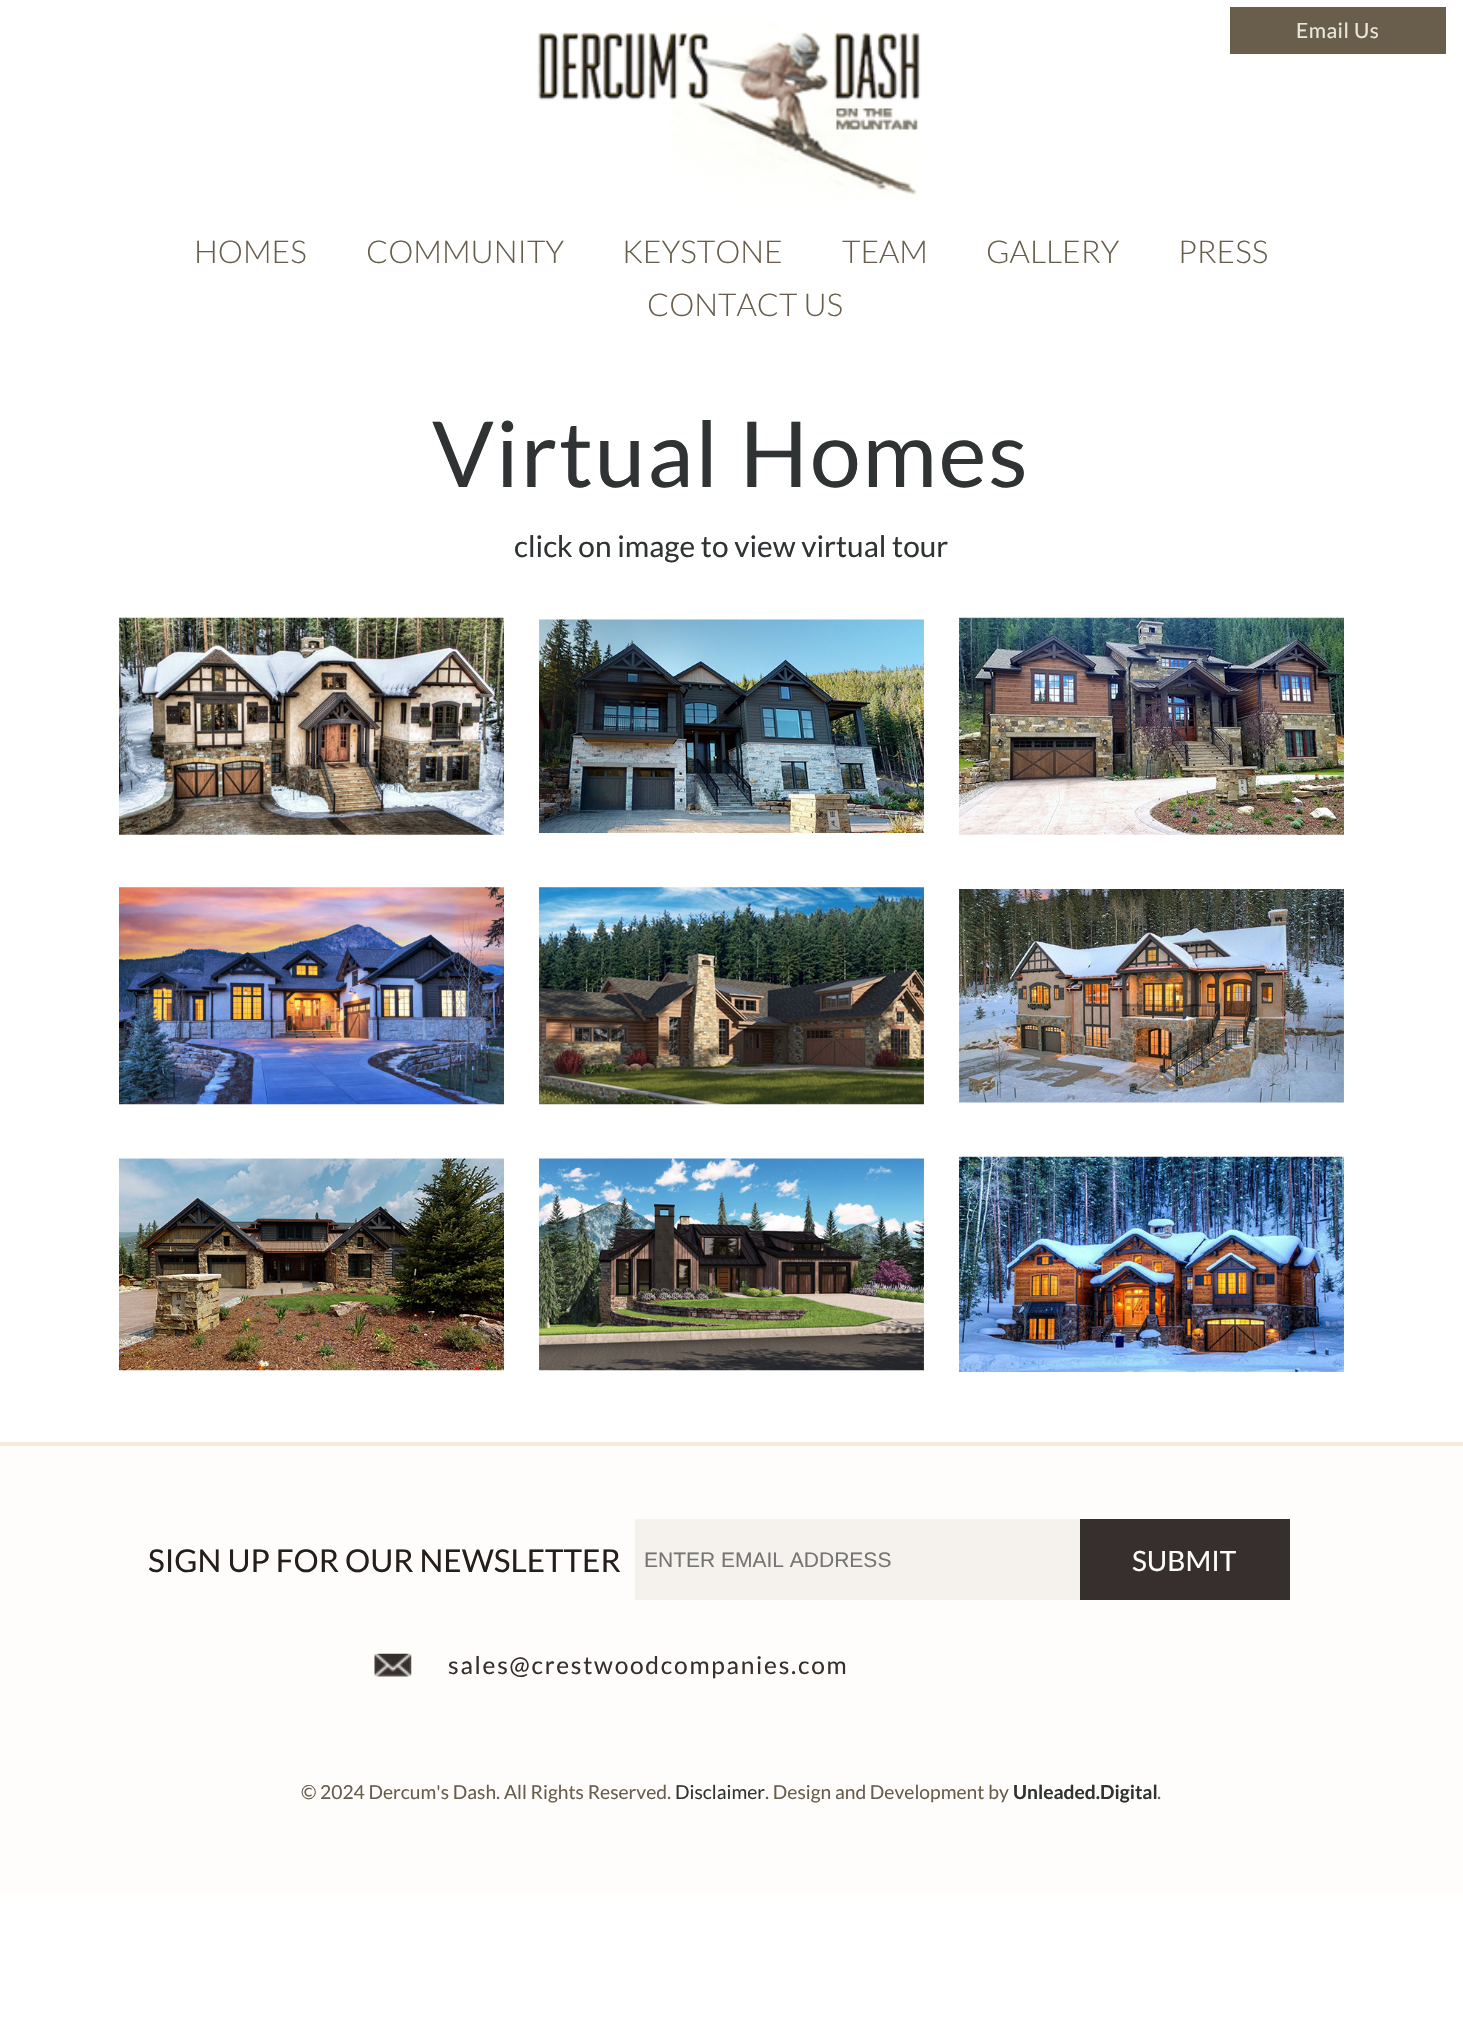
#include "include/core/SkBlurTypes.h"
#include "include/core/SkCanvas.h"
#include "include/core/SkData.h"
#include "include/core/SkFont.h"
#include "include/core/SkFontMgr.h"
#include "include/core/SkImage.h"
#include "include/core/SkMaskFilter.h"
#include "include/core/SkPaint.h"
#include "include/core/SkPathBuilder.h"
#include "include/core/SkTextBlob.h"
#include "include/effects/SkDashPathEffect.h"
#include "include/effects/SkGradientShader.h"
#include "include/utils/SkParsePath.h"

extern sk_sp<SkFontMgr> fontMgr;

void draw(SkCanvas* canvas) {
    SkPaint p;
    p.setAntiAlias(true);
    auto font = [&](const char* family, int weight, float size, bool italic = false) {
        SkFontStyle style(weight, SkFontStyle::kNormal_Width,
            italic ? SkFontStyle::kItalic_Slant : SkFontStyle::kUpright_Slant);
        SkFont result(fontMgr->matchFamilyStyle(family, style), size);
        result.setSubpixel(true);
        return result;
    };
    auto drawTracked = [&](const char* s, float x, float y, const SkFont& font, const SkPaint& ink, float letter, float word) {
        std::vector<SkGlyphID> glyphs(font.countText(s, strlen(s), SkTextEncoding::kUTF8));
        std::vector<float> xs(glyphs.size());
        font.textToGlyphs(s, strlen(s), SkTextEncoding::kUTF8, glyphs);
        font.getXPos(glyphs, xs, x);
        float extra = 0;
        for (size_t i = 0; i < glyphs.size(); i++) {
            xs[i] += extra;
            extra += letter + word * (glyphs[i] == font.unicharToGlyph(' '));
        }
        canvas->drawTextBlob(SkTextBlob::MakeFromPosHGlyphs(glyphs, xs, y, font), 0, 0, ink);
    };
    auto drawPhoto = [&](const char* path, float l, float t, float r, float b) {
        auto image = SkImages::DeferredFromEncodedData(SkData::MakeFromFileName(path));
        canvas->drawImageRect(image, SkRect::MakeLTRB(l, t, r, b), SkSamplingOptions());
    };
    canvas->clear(0xFFFFFFFF);
    p.setColor(0xFF695E4C);
    canvas->drawRect(SkRect::MakeLTRB(1230, 7, 1446, 54), p);
    auto font1 = font("Lato", 400, 21);
    p.setColor(0xFFEAE6DA);
    drawTracked("Email Us", 1296, 38, font1, p, 0.5f, 0);
    auto font2 = font("Lato", 300, 31.5f);
    p.setColor(0xFF695E4C);
    {
        const struct { const char* s; float x, y; } items[] = {
            {"HOMES", 194, 263},
            {"COMMUNITY", 366, 263},
            {"KEYSTONE", 622, 263},
            {"TEAM", 842, 263},
            {"GALLERY", 986, 263},
            {"PRESS", 1178, 263},
            {"CONTACT US", 647, 316},
        };
        for (auto [s, x, y] : items) {
            canvas->drawString(s, x, y, font2, p);
        }
    }
    drawPhoto("media/1.png", 537, 22, 922, 201);
    auto font3 = font("Lato", 400, 91);
    p.setColor(0xFF303334);
    drawTracked("Virtual Homes", 432, 487, font3, p, 1.75f, 0);
    auto font4 = font("Lato", 400, 29.75f);
    canvas->drawString("click on image to view virtual tour", 514, 557, font4, p);
    drawPhoto("media/2.png", 119, 617, 504, 835);
    drawPhoto("media/3.png", 539, 619, 924, 833);
    drawPhoto("media/4.png", 959, 617, 1344, 835);
    drawPhoto("media/5.png", 119, 887, 504, 1105);
    drawPhoto("media/6.png", 539, 887, 924, 1105);
    drawPhoto("media/7.png", 959, 889, 1344, 1103);
    drawPhoto("media/8.png", 119, 1158, 504, 1371);
    drawPhoto("media/9.png", 539, 1158, 924, 1371);
    drawPhoto("media/10.png", 959, 1156, 1344, 1372);
    p.setColor(0xFFFFFDFB);
    canvas->drawRect(SkRect::MakeLTRB(0, 1446, 1463, 1895), p);
    p.setColor(0xFFF6E9DE);
    canvas->drawRect(SkRect::MakeLTRB(0, 1442, 1463, 1446), p);
    auto font5 = font("Lato", 400, 31.5f);
    p.setColor(0xFF241F1D);
    canvas->drawString("SIGN UP FOR OUR NEWSLETTER", 148, 1572, font5, p);
    p.setColor(0xFFF5F1EC);
    canvas->drawRect(SkRect::MakeLTRB(635, 1519, 1080, 1600), p);
    auto font6 = font("Liberation Sans", 400, 21);
    p.setColor(0xFF757575);
    canvas->drawString("ENTER EMAIL ADDRESS", 644, 1567, font6, p);
    p.setColor(0xFF362F2D);
    canvas->drawRect(SkRect::MakeLTRB(1080, 1519, 1290, 1600), p);
    auto font7 = font("Lato", 400, 28);
    p.setColor(0xFFFFFDFB);
    canvas->drawString("SUBMIT", 1132, 1571, font7, p);
    drawPhoto("media/11.png", 374, 1653, 412, 1677);
    auto font8 = font("Lato", 400, 24.5f);
    p.setColor(0xFF362F2D);
    drawTracked("sales@crestwoodcompanies.com", 448, 1674, font8, p, 1.75f, 0);
    auto font9 = font("Lato", 400, 19.25f);
    p.setColor(0xFF695E4C);
    canvas->drawString("© 2024 Dercum's Dash. All Rights Reserved.", 301, 1799, font9, p);
    p.setColor(0xFF303334);
    canvas->drawString("Disclaimer", 675, 1799, font9, p);
    p.setColor(0xFF695E4C);
    canvas->drawString(". Design and Development by", 765, 1799, font9, p);
    auto font10 = font("Lato", 700, 19.25f);
    p.setColor(0xFF303334);
    canvas->drawString("Unleaded.Digital", 1013, 1799, font10, p);
    p.setColor(0xFF695E4C);
    canvas->drawString(".", 1157, 1799, font9, p);
}
